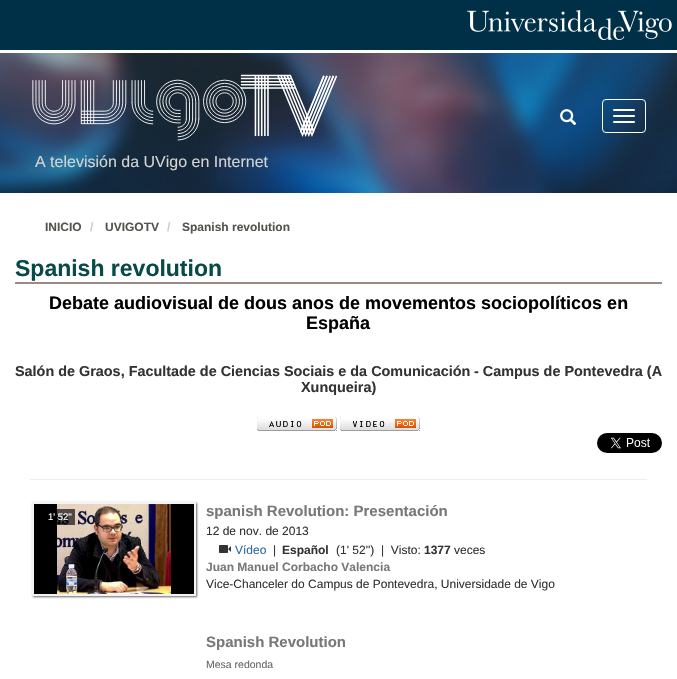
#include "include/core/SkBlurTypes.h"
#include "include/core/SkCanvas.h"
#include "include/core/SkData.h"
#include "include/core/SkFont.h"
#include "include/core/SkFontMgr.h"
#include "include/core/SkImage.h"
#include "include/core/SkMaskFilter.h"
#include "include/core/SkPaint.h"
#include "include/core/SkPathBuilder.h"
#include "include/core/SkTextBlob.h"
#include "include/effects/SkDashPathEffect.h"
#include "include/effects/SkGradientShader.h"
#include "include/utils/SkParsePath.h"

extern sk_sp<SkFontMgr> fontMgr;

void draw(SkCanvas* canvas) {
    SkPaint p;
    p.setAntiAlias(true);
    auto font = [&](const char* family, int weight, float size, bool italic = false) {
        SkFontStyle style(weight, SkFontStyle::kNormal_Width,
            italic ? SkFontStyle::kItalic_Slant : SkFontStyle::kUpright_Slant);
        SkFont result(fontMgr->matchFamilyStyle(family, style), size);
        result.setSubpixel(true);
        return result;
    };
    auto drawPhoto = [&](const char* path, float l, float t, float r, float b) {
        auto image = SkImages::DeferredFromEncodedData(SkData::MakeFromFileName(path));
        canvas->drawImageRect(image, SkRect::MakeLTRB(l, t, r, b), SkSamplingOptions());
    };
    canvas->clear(0xFFFFFFFF);
    p.setColor(0xFF003047);
    canvas->drawRect(SkRect::MakeLTRB(0, 0, 677, 50), p);
    drawPhoto("media/1.png", 467, 10, 672, 40);
    drawPhoto("media/2.png", 0, 53, 677, 193);
    drawPhoto("media/3.png", 560, 109, 577, 126);
    p.setStyle(SkPaint::kStroke_Style);
    p.setStrokeWidth(1);
    p.setColor(0xFFFFFFFF);
    canvas->drawRoundRect(SkRect::MakeLTRB(602.5f, 99.5f, 645.5f, 132.5f), 3.5f, 3.5f, p);
    p.setStyle(SkPaint::kFill_Style);
    canvas->drawRoundRect(SkRect::MakeLTRB(613, 109, 635, 111), 1, 1, p);
    canvas->drawRoundRect(SkRect::MakeLTRB(613, 115, 635, 117), 1, 1, p);
    canvas->drawRoundRect(SkRect::MakeLTRB(613, 121, 635, 123), 1, 1, p);
    drawPhoto("media/4.png", 32, 74, 338, 141);
    auto font1 = font("Liberation Sans", 400, 16);
    p.setColor(0xFFD3D3D3);
    canvas->drawString("A televisión da UVigo en Internet", 35, 167, font1, p);
    auto font2 = font("Liberation Sans", 700, 12);
    p.setColor(0xFF53544E);
    canvas->drawString("INICIO", 45, 231, font2, p);
    p.setColor(0xFFCCCCCC);
    canvas->drawString("/", 90, 231, font2, p);
    p.setColor(0xFF53544E);
    canvas->drawString("UVIGOTV", 105, 231, font2, p);
    p.setColor(0xFFCCCCCC);
    canvas->drawString("/", 167, 231, font2, p);
    p.setColor(0xFF53544E);
    canvas->drawString("Spanish revolution", 182, 231, font2, p);
    p.setColor(0xFF9C8B83);
    canvas->drawRect(SkRect::MakeLTRB(15, 282, 662, 284), p);
    auto font3 = font("Liberation Sans", 700, 23);
    p.setColor(0xFF084A48);
    canvas->drawString("Spanish revolution", 15, 276, font3, p);
    auto font4 = font("Liberation Sans", 700, 18);
    p.setColor(0xFF000000);
    canvas->drawString("Debate audiovisual de dous anos de movementos sociopolíticos en", 49, 309, font4, p);
    canvas->drawString("España", 306, 329, font4, p);
    auto font5 = font("Liberation Sans", 700, 14.4f);
    p.setColor(0xFF333333);
    {
        const struct { const char* s; float x, y; } items[] = {
            {"Salón de Graos, Facultade de Ciencias Sociais e da Comunicación", 15, 376},
            {"- Campus de Pontevedra (A", 474, 376},
            {"Xunqueira)", 301, 392},
        };
        for (auto [s, x, y] : items) {
            canvas->drawString(s, x, y, font5, p);
        }
    }
    drawPhoto("media/5.png", 257, 417, 337, 431);
    drawPhoto("media/6.png", 340, 417, 420, 431);
    drawPhoto("media/7.png", 597, 433, 662, 453);
    p.setColor(0xFFEEEEEE);
    canvas->drawRect(SkRect::MakeLTRB(30, 479, 647, 480), p);
    p.setColor(0xFF666666);
    p.setMaskFilter(SkMaskFilter::MakeBlur(kNormal_SkBlurStyle, 1));
    canvas->drawRect(SkRect::MakeLTRB(33, 503, 197, 597), p);
    p.setMaskFilter(nullptr);
    p.setColor(0xFFF3F3F3);
    canvas->drawRect(SkRect::MakeLTRB(32, 502, 196, 596), p);
    p.setColor(0xFF000000);
    canvas->drawRect(SkRect::MakeLTRB(34, 504, 194, 594), p);
    drawPhoto("media/8.png", 57, 504, 171, 594);
    p.setColor(0xA6000000);
    canvas->drawRect(SkRect::MakeLTRB(57, 509, 75, 525), p);
    auto font6 = font("Liberation Sans", 400, 9.5f);
    p.setColor(0xFFFFFFFF);
    canvas->drawString("1' 52''", 48, 520, font6, p);
    auto font7 = font("Liberation Sans", 700, 15);
    p.setColor(0xFF78787A);
    canvas->drawString("spanish Revolution: Presentación", 206, 516, font7, p);
    auto font8 = font("Liberation Sans", 400, 12);
    p.setColor(0xFF333333);
    canvas->drawString("12 de nov. de 2013", 206, 535, font8, p);
    drawPhoto("media/9.png", 219, 545, 231, 553);
    p.setColor(0xFF2D699E);
    canvas->drawString("Vídeo", 235, 554, font8, p);
    p.setColor(0xFF333333);
    canvas->drawString("|", 273, 554, font8, p);
    canvas->drawString("Español", 282, 554, font2, p);
    canvas->drawString("(1' 52'')", 336, 554, font8, p);
    canvas->drawString("|  Visto:", 381, 554, font8, p);
    canvas->drawString("1377", 424, 554, font2, p);
    canvas->drawString("veces", 454, 554, font8, p);
    p.setColor(0xFF78787A);
    canvas->drawString("Juan Manuel Corbacho Valencia", 206, 571, font2, p);
    p.setColor(0xFF333333);
    canvas->drawString("Vice-Chanceler do Campus de Pontevedra, Universidade de Vigo", 206, 588, font8, p);
    p.setColor(0xFF78787A);
    canvas->drawString("Spanish Revolution", 206, 647, font7, p);
    auto font9 = font("Liberation Sans", 400, 10.5f);
    p.setColor(0xFF656565);
    canvas->drawString("Mesa redonda", 206, 668, font9, p);
}
